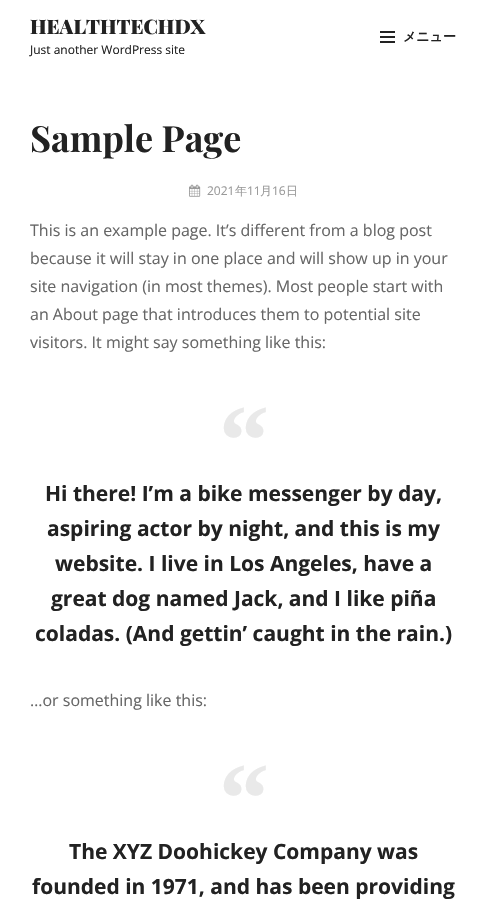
#include "include/core/SkBlurTypes.h"
#include "include/core/SkCanvas.h"
#include "include/core/SkData.h"
#include "include/core/SkFont.h"
#include "include/core/SkFontMgr.h"
#include "include/core/SkImage.h"
#include "include/core/SkMaskFilter.h"
#include "include/core/SkPaint.h"
#include "include/core/SkPathBuilder.h"
#include "include/core/SkTextBlob.h"
#include "include/effects/SkDashPathEffect.h"
#include "include/effects/SkGradientShader.h"
#include "include/utils/SkParsePath.h"

extern sk_sp<SkFontMgr> fontMgr;

void draw(SkCanvas* canvas) {
    SkPaint p;
    p.setAntiAlias(true);
    auto font = [&](const char* family, int weight, float size, bool italic = false) {
        SkFontStyle style(weight, SkFontStyle::kNormal_Width,
            italic ? SkFontStyle::kItalic_Slant : SkFontStyle::kUpright_Slant);
        SkFont result(fontMgr->matchFamilyStyle(family, style), size);
        result.setSubpixel(true);
        return result;
    };
    auto drawPhoto = [&](const char* path, float l, float t, float r, float b) {
        auto image = SkImages::DeferredFromEncodedData(SkData::MakeFromFileName(path));
        canvas->drawImageRect(image, SkRect::MakeLTRB(l, t, r, b), SkSamplingOptions());
    };
    canvas->clear(0xFFFFFFFF);
    auto font1 = font("Playfair Display", 900, 20);
    p.setColor(0xFF222222);
    canvas->drawString("HEALTHTECHDX", 30, 34, font1, p);
    auto font2 = font("Open Sans", 400, 12);
    canvas->drawString("Just another WordPress site", 30, 54, font2, p);
    {
        const struct { float l, t, r, b; SkColor color; } items[] = {
            {380, 31, 395, 33, 0xFF222222},
            {380, 36, 395, 38, 0xFF222222},
            {380, 41, 395, 43, 0xFF222222},
        };
        for (auto [l, t, r, b, color] : items) {
            p.setColor(color);
            canvas->drawRect(SkRect::MakeLTRB(l, t, r, b), p);
        }
    }
    auto font3 = font("WenQuanYi Zen Hei", 700, 13);
    canvas->drawString("メニュー", 403, 41, font3, p);
    auto font4 = font("Playfair Display", 700, 36);
    canvas->drawString("Sample Page", 30, 152, font4, p);
    drawPhoto("media/1.png", 189, 184, 201, 197);
    p.setColor(0xFF999999);
    canvas->drawString("2021", 207, 195, font2, p);
    auto font5 = font("WenQuanYi Zen Hei", 500, 12);
    canvas->drawString("年", 235, 195, font5, p);
    canvas->drawString("11", 247, 195, font2, p);
    canvas->drawString("月", 260, 195, font5, p);
    canvas->drawString("16", 272, 195, font2, p);
    canvas->drawString("日", 286, 195, font5, p);
    auto font6 = font("Open Sans", 400, 16);
    p.setColor(0xFF666666);
    {
        const struct { const char* s; float x, y; } items[] = {
            {"This is an example page. It’s different from a blog post", 30, 236},
            {"because it will stay in one place and will show up in your", 30, 264},
            {"site navigation (in most themes). Most people start with", 30, 292},
            {"an About page that introduces them to potential site", 30, 320},
            {"visitors. It might say something like this:", 30, 348},
        };
        for (auto [s, x, y] : items) {
            canvas->drawString(s, x, y, font6, p);
        }
    }
    auto font7 = font("Liberation Serif", 700, 100);
    p.setColor(0xFFE9E9E9);
    canvas->drawString("“", 219, 474, font7, p);
    auto font8 = font("Open Sans", 700, 21);
    p.setColor(0xFF222222);
    {
        const struct { const char* s; float x, y; } items[] = {
            {"Hi there! I’m a bike messenger by day,", 45, 501},
            {"aspiring actor by night, and this is my", 47, 536},
            {"website. I live in Los Angeles, have a", 55, 571},
            {"great dog named Jack, and I like piña", 51, 606},
            {"coladas. (And gettin’ caught in the rain.)", 35, 641},
        };
        for (auto [s, x, y] : items) {
            canvas->drawString(s, x, y, font8, p);
        }
    }
    p.setColor(0xFF666666);
    canvas->drawString("…or something like this:", 30, 706, font6, p);
    p.setColor(0xFFE9E9E9);
    canvas->drawString("“", 219, 832, font7, p);
    p.setColor(0xFF222222);
    canvas->drawString("The XYZ Doohickey Company was", 69, 859, font8, p);
    canvas->drawString("founded in 1971, and has been providing", 32, 894, font8, p);
}
